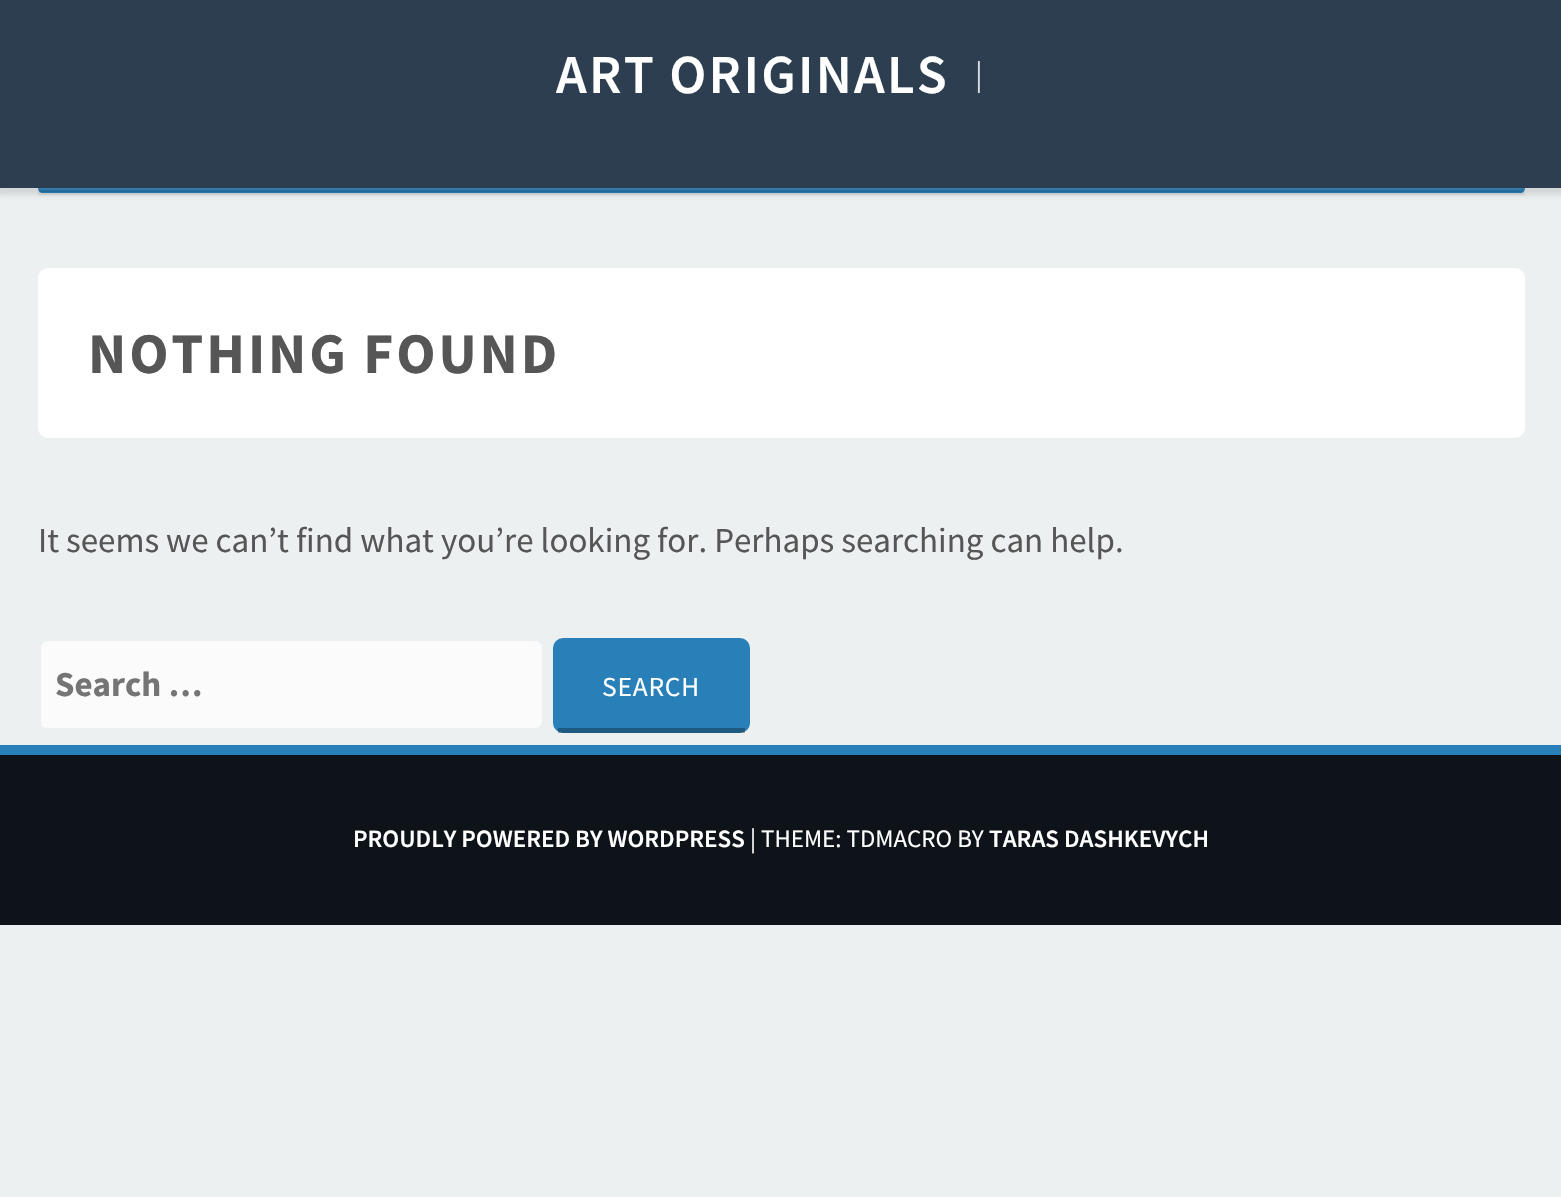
#include "include/core/SkBlurTypes.h"
#include "include/core/SkCanvas.h"
#include "include/core/SkData.h"
#include "include/core/SkFont.h"
#include "include/core/SkFontMgr.h"
#include "include/core/SkImage.h"
#include "include/core/SkMaskFilter.h"
#include "include/core/SkPaint.h"
#include "include/core/SkPathBuilder.h"
#include "include/core/SkTextBlob.h"
#include "include/effects/SkDashPathEffect.h"
#include "include/effects/SkGradientShader.h"
#include "include/utils/SkParsePath.h"

extern sk_sp<SkFontMgr> fontMgr;

void draw(SkCanvas* canvas) {
    SkPaint p;
    p.setAntiAlias(true);
    auto font = [&](const char* family, int weight, float size, bool italic = false) {
        SkFontStyle style(weight, SkFontStyle::kNormal_Width,
            italic ? SkFontStyle::kItalic_Slant : SkFontStyle::kUpright_Slant);
        SkFont result(fontMgr->matchFamilyStyle(family, style), size);
        result.setSubpixel(true);
        return result;
    };
    auto drawTracked = [&](const char* s, float x, float y, const SkFont& font, const SkPaint& ink, float letter, float word) {
        std::vector<SkGlyphID> glyphs(font.countText(s, strlen(s), SkTextEncoding::kUTF8));
        std::vector<float> xs(glyphs.size());
        font.textToGlyphs(s, strlen(s), SkTextEncoding::kUTF8, glyphs);
        font.getXPos(glyphs, xs, x);
        float extra = 0;
        for (size_t i = 0; i < glyphs.size(); i++) {
            xs[i] += extra;
            extra += letter + word * (glyphs[i] == font.unicharToGlyph(' '));
        }
        canvas->drawTextBlob(SkTextBlob::MakeFromPosHGlyphs(glyphs, xs, y, font), 0, 0, ink);
    };
    canvas->clear(0xFFECF0F1);
    p.setColor(0x1A000000);
    p.setMaskFilter(SkMaskFilter::MakeBlur(kNormal_SkBlurStyle, 1));
    canvas->drawRoundRect(SkRect::MakeLTRB(38, 190, 1525, 195), 5, 5, p);
    p.setMaskFilter(nullptr);
    p.setColor(0xFF2980B9);
    canvas->drawPath(SkPathBuilder().moveTo(38, 188).lineTo(1525, 188).cubicTo(1525, 191, 1523, 193, 1520, 193).lineTo(43, 193).cubicTo(40, 193, 38, 191, 38, 188).close().detach(), p);
    p.setColor(0x1ADCDCDC);
    canvas->drawPath(SkPathBuilder().moveTo(38, 188).cubicTo(38, 189, 40, 190, 42, 190).lineTo(1520, 190).cubicTo(1523, 190, 1525, 189, 1525, 188).lineTo(1524, 190).lineTo(1525, 190).lineTo(1525, 188).lineTo(38, 188).lineTo(38, 190).lineTo(39, 190).close().detach(), p);
    p.setColor(0xFF2677AC);
    canvas->drawPath(SkPathBuilder().moveTo(1524, 190).lineTo(39, 190).cubicTo(39, 191, 41, 192, 42, 192).lineTo(1520, 192).cubicTo(1522, 192, 1523, 191, 1524, 190).close().detach(), p);
    p.setColor(0x1A000000);
    p.setMaskFilter(SkMaskFilter::MakeBlur(kNormal_SkBlurStyle, 2.5f));
    canvas->drawRect(SkRect::MakeLTRB(-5, -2, 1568, 195), p);
    p.setMaskFilter(nullptr);
    p.setColor(0xFF2C3E50);
    canvas->drawRect(SkRect::MakeLTRB(0, 0, 1561, 188), p);
    auto font1 = font("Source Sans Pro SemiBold", 600, 55);
    p.setColor(0xFFFFFFFF);
    drawTracked("ART ORIGINALS", 556, 93, font1, p, 2.25f, 0);
    auto font2 = font("Source Sans Pro", 400, 32);
    p.setColor(0xFFD5D8DC);
    drawTracked("|", 975, 85, font2, p, 3, 0);
    p.setColor(0xFFFFFFFF);
    canvas->drawRoundRect(SkRect::MakeLTRB(38, 268, 1525, 438), 10, 10, p);
    auto font3 = font("Source Sans Pro", 700, 57.5f);
    p.setColor(0xFF565656);
    drawTracked("NOTHING FOUND", 88, 373, font3, p, 2.9f, 0);
    auto font4 = font("Source Sans Pro", 400, 35);
    canvas->drawString("It seems we can’t find what you’re looking for. Perhaps searching can help.", 38, 552, font4, p);
    p.setColor(0xFFFBFBFC);
    canvas->drawPath(SkPathBuilder().moveTo(48, 640).lineTo(535, 640).cubicTo(539, 640, 542, 643, 542, 648).lineTo(542, 722).cubicTo(542, 725, 539, 728, 535, 728).lineTo(48, 728).cubicTo(43, 728, 40, 725, 40, 722).lineTo(40, 648).cubicTo(40, 643, 43, 640, 48, 640).close().detach(), p);
    p.setStyle(SkPaint::kStroke_Style);
    p.setStrokeWidth(3);
    p.setColor(0xFFECF0F1);
    canvas->drawRoundRect(SkRect::MakeLTRB(39.5f, 639.5f, 543.5f, 731.5f), 8.5f, 8.5f, p);
    auto font5 = font("Source Sans Pro", 700, 35);
    p.setStyle(SkPaint::kFill_Style);
    p.setColor(0xFF757575);
    canvas->drawString("Search …", 55, 696, font5, p);
    p.setColor(0xFF2980B9);
    canvas->drawRoundRect(SkRect::MakeLTRB(553, 638, 750, 733), 10, 10, p);
    p.setColor(0x4D000000);
    canvas->drawRect(SkRect::MakeLTRB(558, 728, 745, 733), p);
    auto font6 = font("Source Sans Pro", 400, 27.5f);
    p.setColor(0xFFFFFFFF);
    drawTracked("SEARCH", 602, 696, font6, p, 0.75f, 0);
    p.setColor(0xFF2980B9);
    canvas->drawRect(SkRect::MakeLTRB(0, 745, 1561, 755), p);
    p.setColor(0xFF0D1318);
    canvas->drawRect(SkRect::MakeLTRB(0, 755, 1561, 925), p);
    auto font7 = font("Source Sans Pro SemiBold", 600, 25);
    p.setColor(0xFFFFFFFF);
    canvas->drawString("PROUDLY POWERED BY WORDPRESS", 353, 847, font7, p);
    auto font8 = font("Source Sans Pro", 400, 25);
    canvas->drawString("| THEME: TDMACRO BY", 750, 847, font8, p);
    canvas->drawString("TARAS DASHKEVYCH", 989, 847, font7, p);
}
